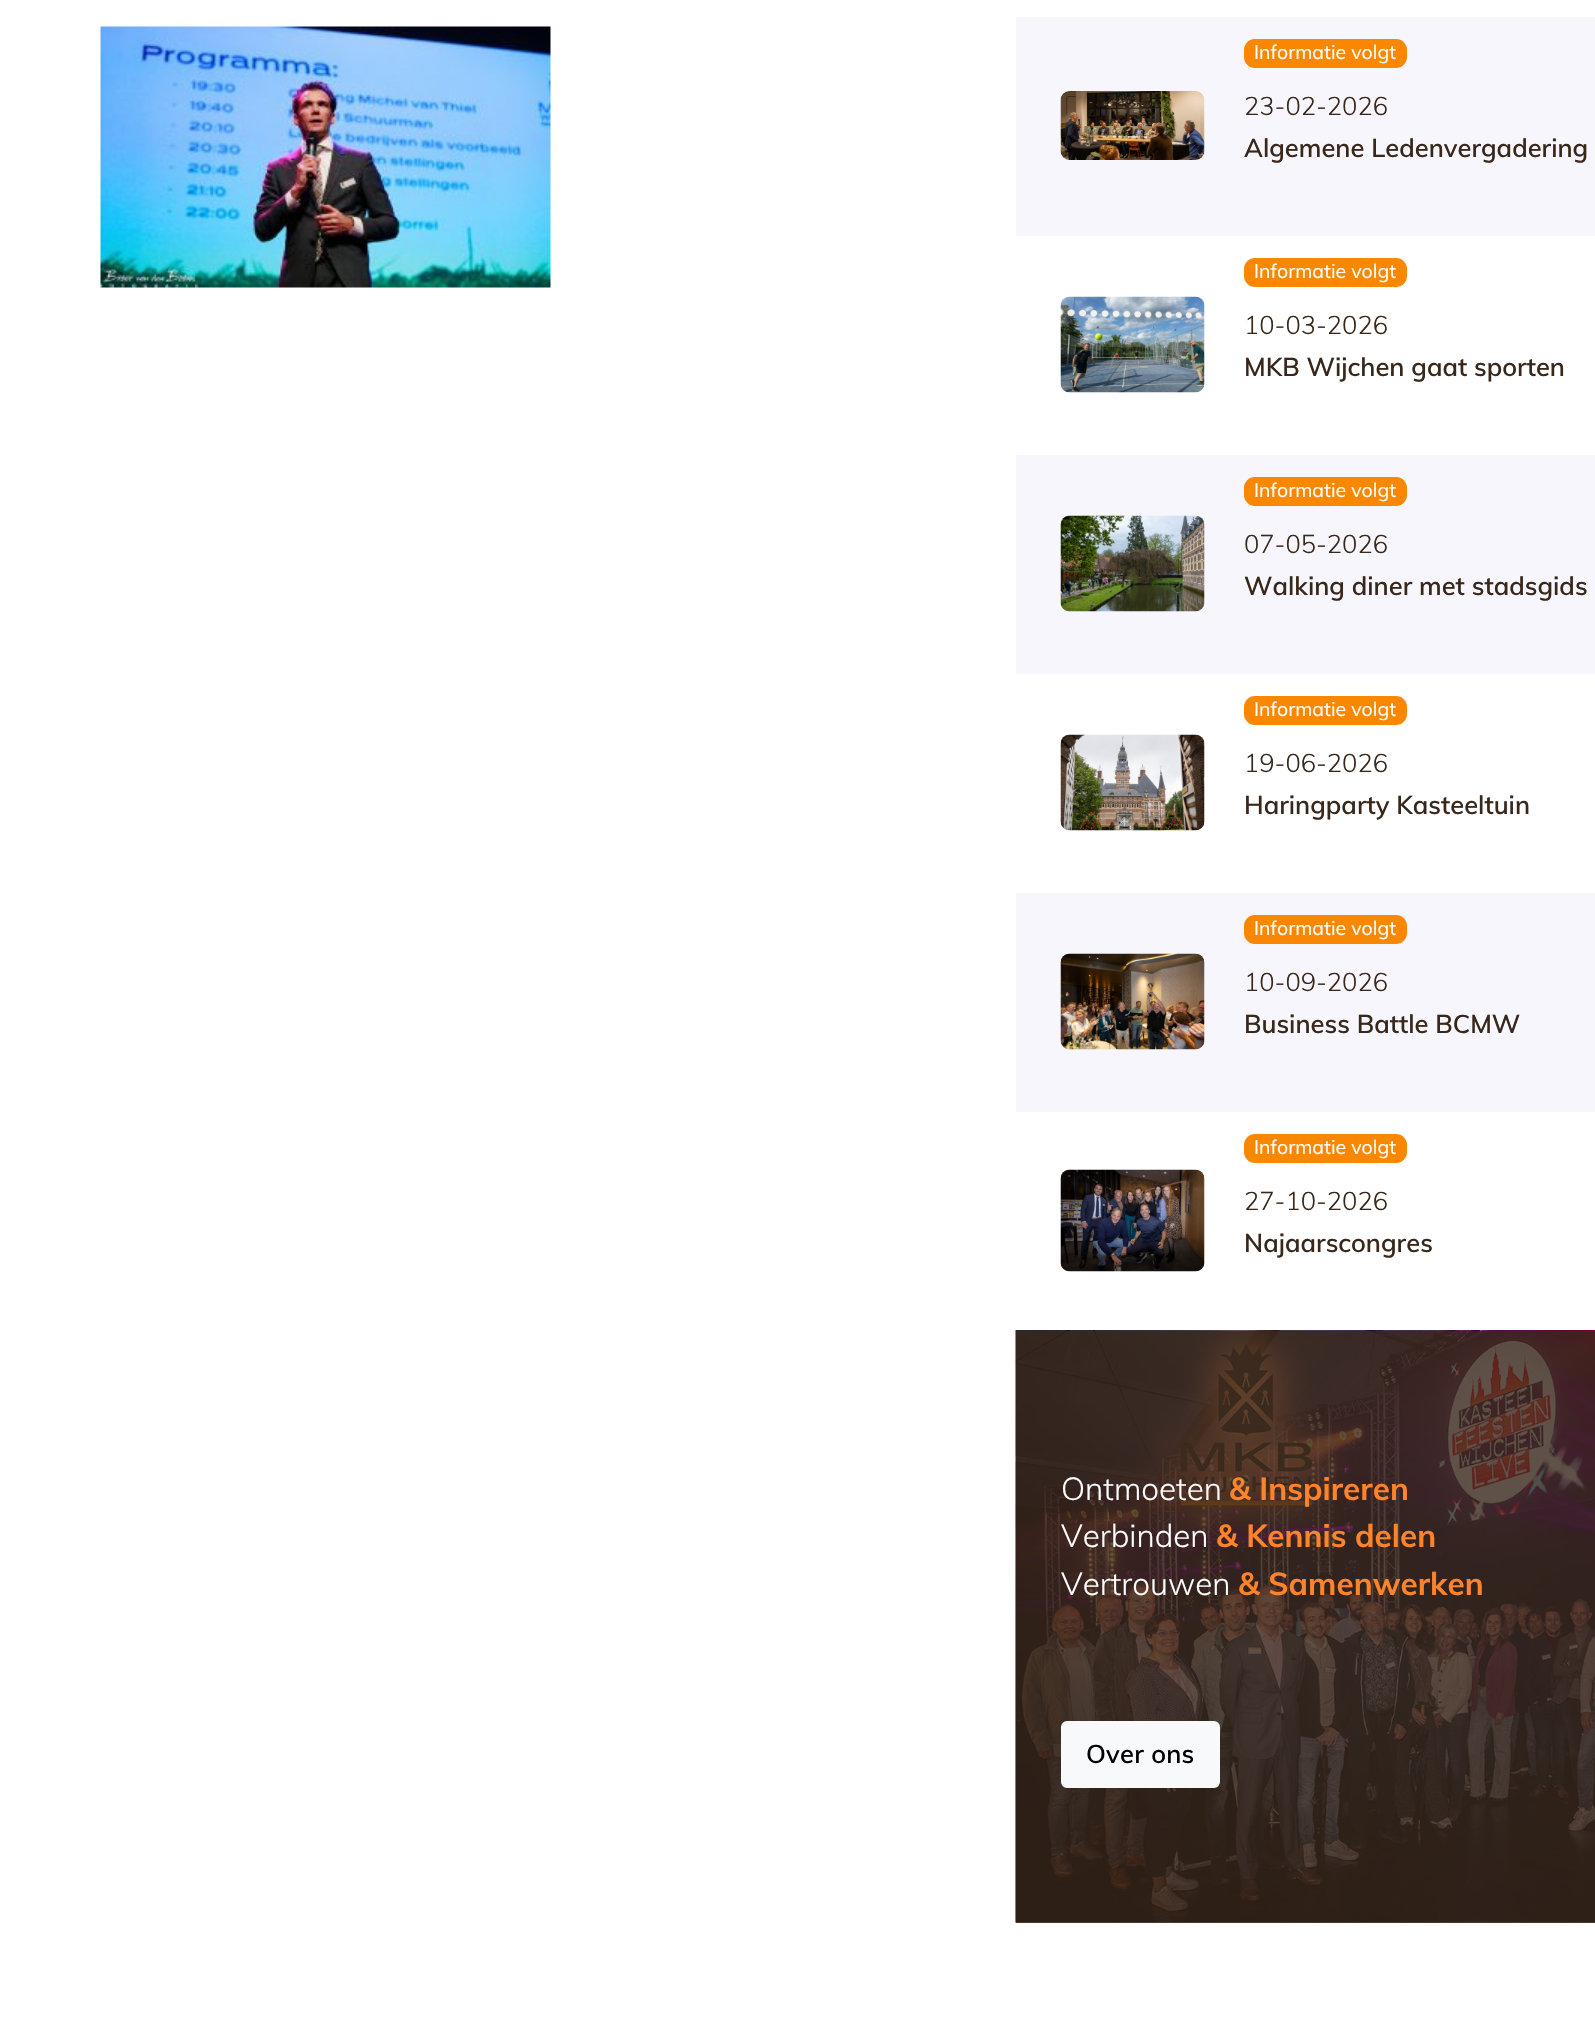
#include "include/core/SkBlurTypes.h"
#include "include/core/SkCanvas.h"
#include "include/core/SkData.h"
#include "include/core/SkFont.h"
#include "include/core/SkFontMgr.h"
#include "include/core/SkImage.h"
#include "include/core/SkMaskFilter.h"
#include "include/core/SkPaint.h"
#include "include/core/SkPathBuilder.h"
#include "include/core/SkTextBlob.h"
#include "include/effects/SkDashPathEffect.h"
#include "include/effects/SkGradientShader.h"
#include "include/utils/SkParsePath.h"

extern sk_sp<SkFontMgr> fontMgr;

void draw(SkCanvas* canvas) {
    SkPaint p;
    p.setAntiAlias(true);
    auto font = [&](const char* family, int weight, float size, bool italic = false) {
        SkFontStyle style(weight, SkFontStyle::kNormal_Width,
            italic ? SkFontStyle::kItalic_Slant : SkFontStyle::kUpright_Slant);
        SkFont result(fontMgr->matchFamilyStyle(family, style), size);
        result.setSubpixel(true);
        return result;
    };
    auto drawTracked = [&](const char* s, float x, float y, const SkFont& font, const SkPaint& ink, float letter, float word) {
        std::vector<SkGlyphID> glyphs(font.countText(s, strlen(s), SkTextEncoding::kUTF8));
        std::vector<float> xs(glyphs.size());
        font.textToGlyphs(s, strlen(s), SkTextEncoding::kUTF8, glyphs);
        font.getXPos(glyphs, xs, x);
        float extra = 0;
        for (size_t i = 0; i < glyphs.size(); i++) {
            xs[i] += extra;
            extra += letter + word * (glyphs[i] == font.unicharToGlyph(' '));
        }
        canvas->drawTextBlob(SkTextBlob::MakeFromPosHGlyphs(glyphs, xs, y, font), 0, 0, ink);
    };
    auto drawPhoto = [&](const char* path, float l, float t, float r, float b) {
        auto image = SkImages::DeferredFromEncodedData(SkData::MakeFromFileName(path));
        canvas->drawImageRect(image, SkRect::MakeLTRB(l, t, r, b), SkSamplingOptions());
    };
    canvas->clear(0xFFFFFFFF);
    p.setColor(0xFF605249);
    canvas->drawRect(SkRect::MakeLTRB(1016, 1922, 1595, 1923), p);
    drawPhoto("media/1.png", 100, 26, 551, 288);
    p.setColor(0xFFF6F6FC);
    canvas->drawRect(SkRect::MakeLTRB(1016, 17, 1595, 236), p);
    drawPhoto("media/2.png", 1060, 91, 1205, 160);
    p.setColor(0xFFFA8700);
    canvas->drawRoundRect(SkRect::MakeLTRB(1244, 39, 1407, 68), 11, 11, p);
    auto font1 = font("Muli", 400, 19.5f);
    p.setColor(0xFFFFFFFF);
    canvas->drawString("Informatie volgt", 1254, 59, font1, p);
    auto font2 = font("Muli", 300, 25.5f);
    p.setColor(0xFF38271B);
    canvas->drawString("23-02-2026", 1244, 115, font2, p);
    auto font3 = font("Muli", 600, 25.5f);
    canvas->drawString("Algemene Ledenvergadering", 1244, 157, font3, p);
    drawPhoto("media/3.png", 1060, 296, 1205, 393);
    p.setColor(0xFFFA8700);
    canvas->drawRoundRect(SkRect::MakeLTRB(1244, 258, 1407, 287), 11, 11, p);
    p.setColor(0xFFFFFFFF);
    canvas->drawString("Informatie volgt", 1254, 278, font1, p);
    p.setColor(0xFF38271B);
    canvas->drawString("10-03-2026", 1244, 334, font2, p);
    canvas->drawString("MKB Wijchen gaat sporten", 1244, 376, font3, p);
    p.setColor(0xFFF6F6FC);
    canvas->drawRect(SkRect::MakeLTRB(1016, 455, 1595, 674), p);
    drawPhoto("media/4.png", 1060, 515, 1205, 612);
    p.setColor(0xFFFA8700);
    canvas->drawRoundRect(SkRect::MakeLTRB(1244, 477, 1407, 506), 11, 11, p);
    p.setColor(0xFFFFFFFF);
    canvas->drawString("Informatie volgt", 1254, 497, font1, p);
    p.setColor(0xFF38271B);
    canvas->drawString("07-05-2026", 1244, 553, font2, p);
    canvas->drawString("Walking diner met stadsgids", 1244, 595, font3, p);
    drawPhoto("media/5.png", 1060, 734, 1205, 831);
    p.setColor(0xFFFA8700);
    canvas->drawRoundRect(SkRect::MakeLTRB(1244, 696, 1407, 725), 11, 11, p);
    p.setColor(0xFFFFFFFF);
    canvas->drawString("Informatie volgt", 1254, 716, font1, p);
    p.setColor(0xFF38271B);
    canvas->drawString("19-06-2026", 1244, 772, font2, p);
    canvas->drawString("Haringparty Kasteeltuin", 1244, 814, font3, p);
    p.setColor(0xFFF6F6FC);
    canvas->drawRect(SkRect::MakeLTRB(1016, 893, 1595, 1112), p);
    drawPhoto("media/6.png", 1060, 953, 1205, 1050);
    p.setColor(0xFFFA8700);
    canvas->drawRoundRect(SkRect::MakeLTRB(1244, 915, 1407, 944), 11, 11, p);
    p.setColor(0xFFFFFFFF);
    canvas->drawString("Informatie volgt", 1254, 935, font1, p);
    p.setColor(0xFF38271B);
    canvas->drawString("10-09-2026", 1244, 991, font2, p);
    canvas->drawString("Business Battle BCMW", 1244, 1033, font3, p);
    drawPhoto("media/7.png", 1060, 1169, 1205, 1272);
    p.setColor(0xFFFA8700);
    canvas->drawRoundRect(SkRect::MakeLTRB(1244, 1134, 1407, 1163), 11, 11, p);
    p.setColor(0xFFFFFFFF);
    canvas->drawString("Informatie volgt", 1254, 1154, font1, p);
    p.setColor(0xFF38271B);
    canvas->drawString("27-10-2026", 1244, 1210, font2, p);
    canvas->drawString("Najaarscongres", 1244, 1252, font3, p);
    drawPhoto("media/8.png", 1015, 1330, 1595, 1923);
    auto font4 = font("Muli", 300, 31.5f);
    p.setColor(0xFFFFFFFF);
    canvas->drawString("Ontmoeten", 1061, 1500, font4, p);
    auto font5 = font("Muli", 700, 31.5f);
    p.setColor(0xFFFF8328);
    canvas->drawString("& Inspireren", 1229, 1500, font5, p);
    p.setColor(0xFFFFFFFF);
    canvas->drawString("Verbinden", 1061, 1547, font4, p);
    p.setColor(0xFFFF8328);
    canvas->drawString("& Kennis delen", 1216, 1547, font5, p);
    p.setColor(0xFFFFFFFF);
    canvas->drawString("Vertrouwen", 1061, 1595, font4, p);
    p.setColor(0xFFFF8328);
    canvas->drawString("& Samenwerken", 1238, 1595, font5, p);
    p.setColor(0xFFF8F9FA);
    canvas->drawRoundRect(SkRect::MakeLTRB(1062, 1722, 1219, 1787), 5, 5, p);
    p.setStyle(SkPaint::kStroke_Style);
    p.setStrokeWidth(2);
    canvas->drawRoundRect(SkRect::MakeLTRB(1062, 1722, 1219, 1787), 5, 5, p);
    p.setStyle(SkPaint::kFill_Style);
    p.setColor(0xFF000000);
    drawTracked("Over ons", 1086, 1763, font3, p, 0.25f, 0);
}
